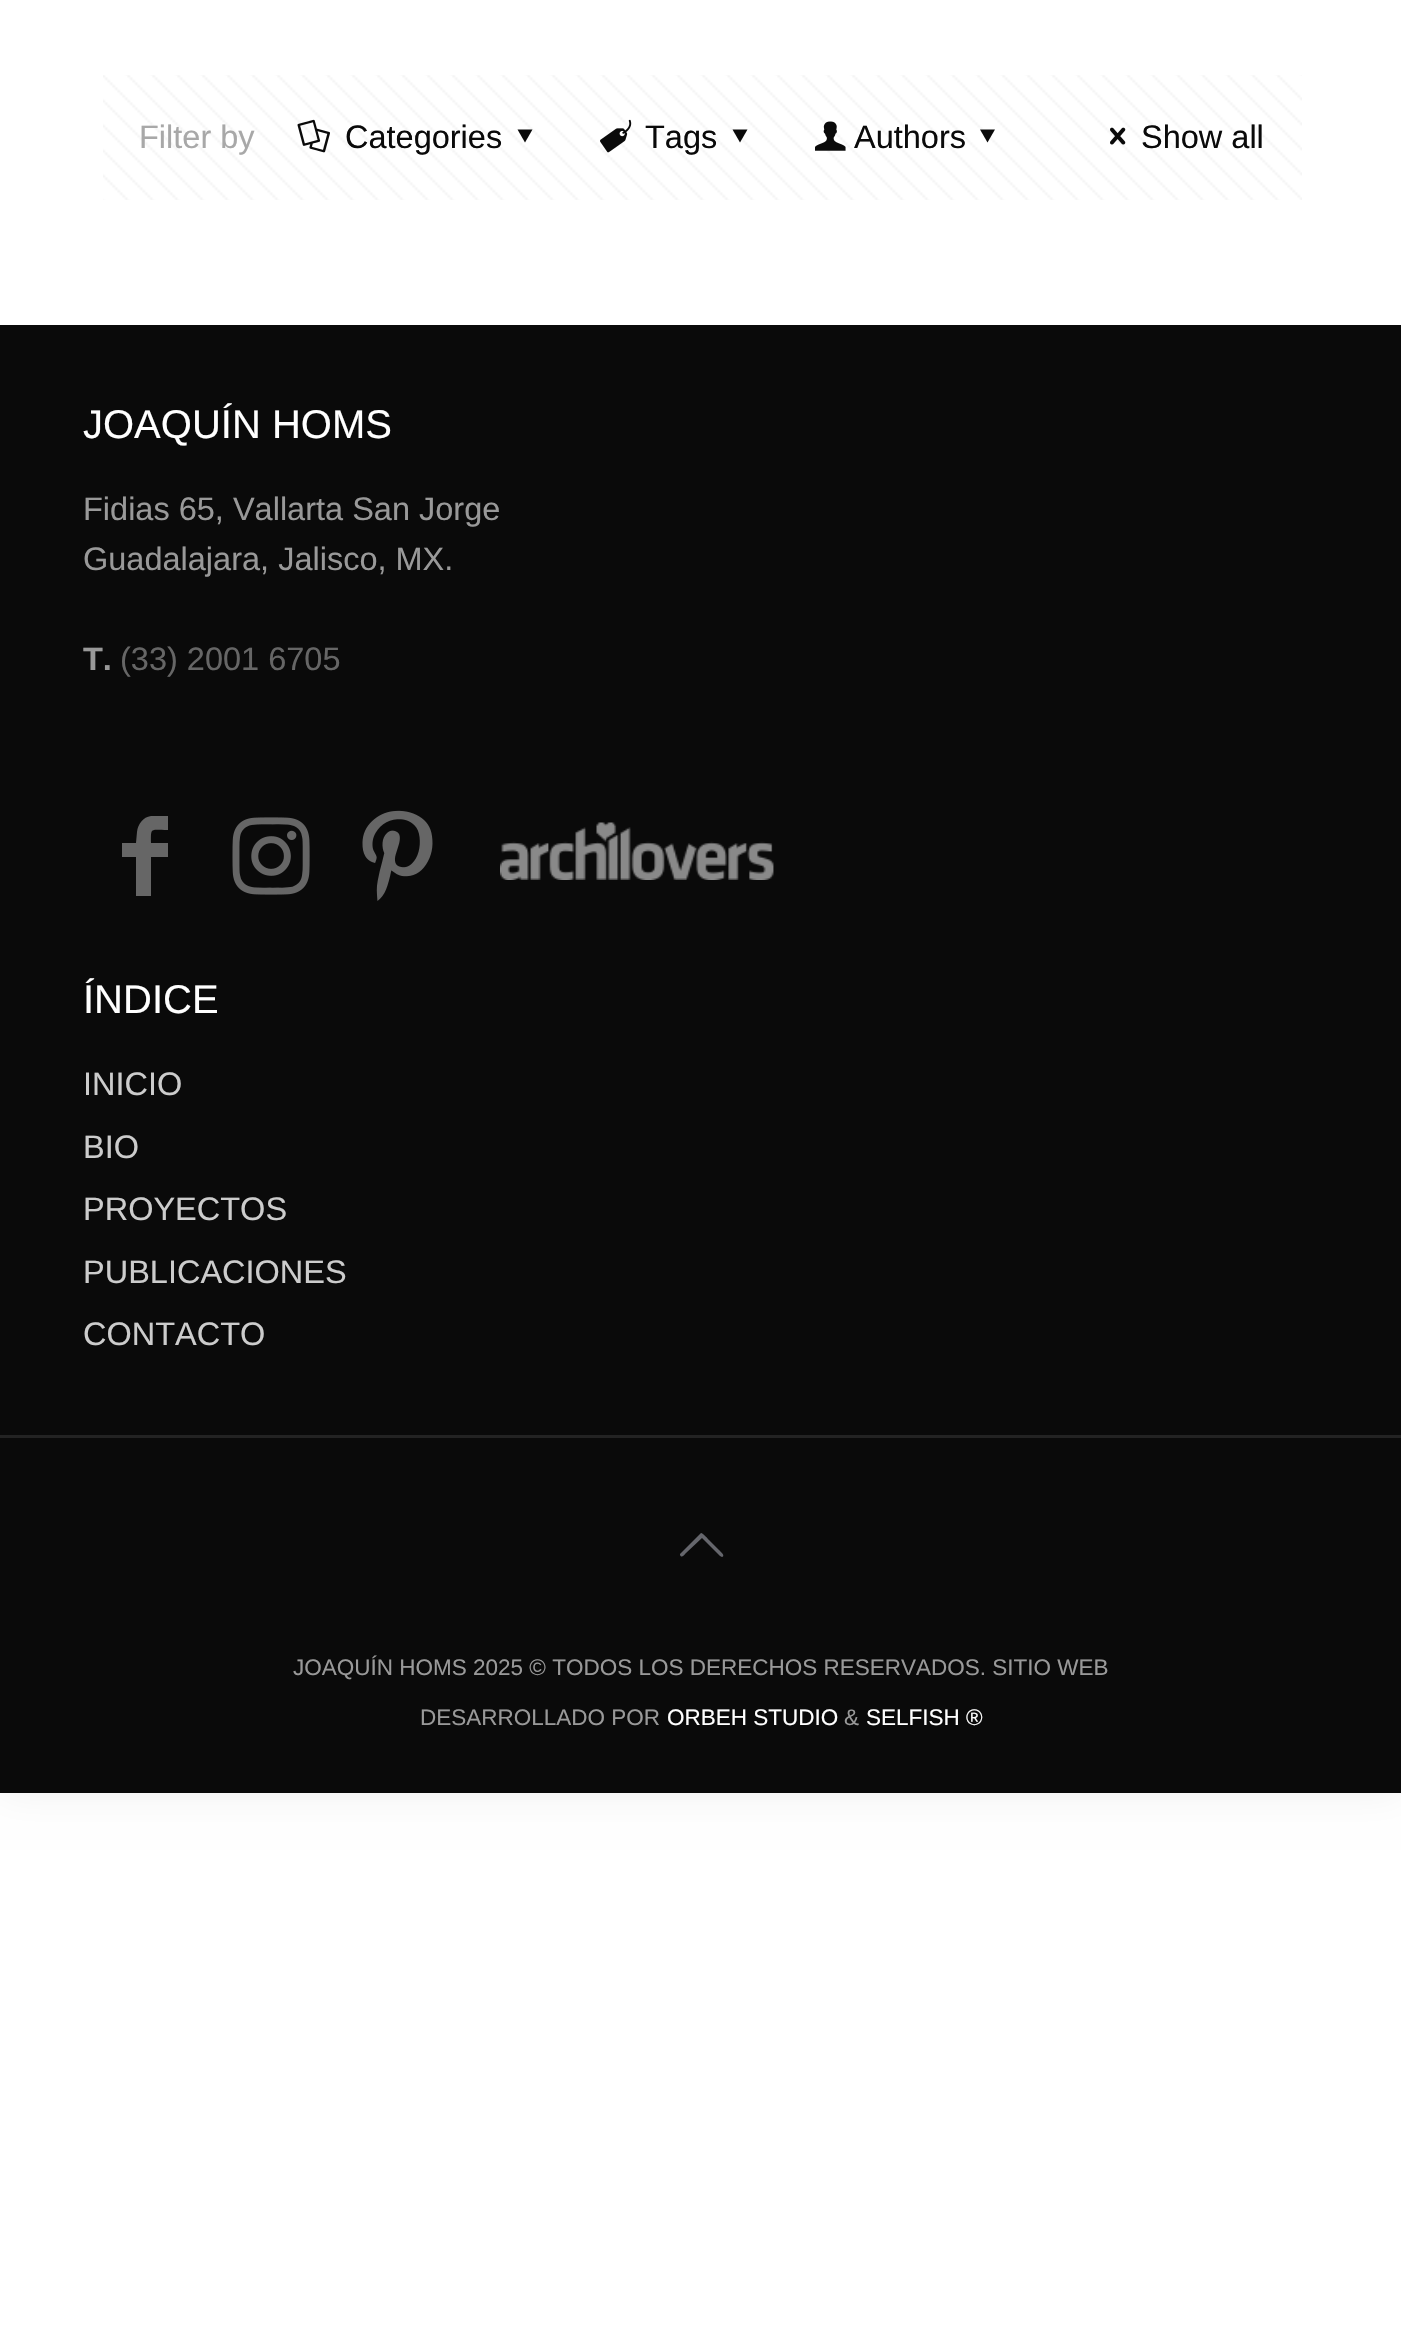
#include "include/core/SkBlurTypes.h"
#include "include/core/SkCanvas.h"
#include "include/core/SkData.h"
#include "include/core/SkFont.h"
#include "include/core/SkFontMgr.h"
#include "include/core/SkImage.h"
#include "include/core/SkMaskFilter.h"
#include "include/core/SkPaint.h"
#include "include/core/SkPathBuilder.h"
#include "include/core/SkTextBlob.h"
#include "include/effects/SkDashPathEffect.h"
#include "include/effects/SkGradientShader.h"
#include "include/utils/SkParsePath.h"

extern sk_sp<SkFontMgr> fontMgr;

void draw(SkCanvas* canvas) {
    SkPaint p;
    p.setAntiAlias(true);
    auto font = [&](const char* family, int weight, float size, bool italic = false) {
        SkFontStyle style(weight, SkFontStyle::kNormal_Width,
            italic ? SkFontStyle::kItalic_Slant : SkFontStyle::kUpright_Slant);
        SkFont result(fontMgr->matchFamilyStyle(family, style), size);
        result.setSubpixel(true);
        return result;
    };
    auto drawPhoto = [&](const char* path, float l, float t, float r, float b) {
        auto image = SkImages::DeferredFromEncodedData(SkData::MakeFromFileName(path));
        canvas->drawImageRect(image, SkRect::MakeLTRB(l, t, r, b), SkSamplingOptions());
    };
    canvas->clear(0xFFFFFFFF);
    p.setColor(0x0F000000);
    p.setMaskFilter(SkMaskFilter::MakeBlur(kNormal_SkBlurStyle, 19));
    canvas->drawRect(SkRect::MakeLTRB(0, 0, 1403, 1793), p);
    p.setMaskFilter(nullptr);
    p.setColor(0xFFFFFFFF);
    canvas->drawRect(SkRect::MakeLTRB(0, 0, 1401, 325), p);
    drawPhoto("media/1.png", 103, 75, 1302, 200);
    auto font1 = font("Liberation Sans", 400, 32.5f);
    p.setColor(0xFFA8A8A8);
    canvas->drawString("Filter by", 139, 148, font1, p);
    drawPhoto("media/2.png", 297, 119, 330, 153);
    p.setColor(0xFF0A0A0A);
    canvas->drawString("Categories", 345, 148, font1, p);
    canvas->drawPath(SkPathBuilder().moveTo(532.5f, 129.5f).lineTo(525, 142.5f).lineTo(517.5f, 129.5f).close().detach(), p);
    drawPhoto("media/3.png", 600, 119, 632, 153);
    canvas->drawString("Tags", 645, 148, font1, p);
    canvas->drawPath(SkPathBuilder().moveTo(747.5f, 129.5f).lineTo(740, 142.5f).lineTo(732.5f, 129.5f).close().detach(), p);
    drawPhoto("media/4.png", 815, 121, 846, 151);
    canvas->drawString("Authors", 854, 148, font1, p);
    canvas->drawPath(SkPathBuilder().moveTo(995, 129.5f).lineTo(987.5f, 142.5f).lineTo(980, 129.5f).close().detach(), p);
    drawPhoto("media/5.png", 1110, 127, 1126, 145);
    canvas->drawString("Show all", 1141, 148, font1, p);
    canvas->drawRect(SkRect::MakeLTRB(0, 325, 1401, 1793), p);
    auto font2 = font("Liberation Sans", 400, 40);
    p.setColor(0xFFFFFFFF);
    canvas->drawString("JOAQUÍN HOMS", 83, 438, font2, p);
    p.setColor(0xFF999999);
    canvas->drawString("Fidias 65, Vallarta San Jorge", 83, 520, font1, p);
    canvas->drawString("Guadalajara, Jalisco, MX.", 83, 570, font1, p);
    auto font3 = font("Liberation Sans", 700, 32.5f);
    canvas->drawString("T.", 83, 670, font3, p);
    p.setColor(0xFF666666);
    canvas->drawString("(33) 2001 6705", 120, 670, font1, p);
    canvas->drawPath(SkPathBuilder().moveTo(168, 830).cubicTo(150, 830, 151, 827, 151, 843).lineTo(168, 843).lineTo(168, 857).lineTo(151, 857).lineTo(151, 896).lineTo(136, 896).lineTo(136, 857).lineTo(122, 857).lineTo(122, 843).lineTo(136, 843).lineTo(137, 832).cubicTo(138, 824, 143, 817, 151, 816).lineTo(168, 816).close().detach(), p);
    drawPhoto("media/6.png", 232, 817, 310, 895);
    drawPhoto("media/7.png", 362, 810, 433, 901);
    drawPhoto("media/8.png", 500, 822, 774, 880);
    p.setColor(0xFFFFFFFF);
    canvas->drawString("ÍNDICE", 83, 1013, font2, p);
    p.setColor(0xFFCCCCCC);
    {
        const struct { const char* s; float x, y; } items[] = {
            {"INICIO", 83, 1095},
            {"BIO", 83, 1158},
            {"PROYECTOS", 83, 1220},
            {"PUBLICACIONES", 83, 1283},
            {"CONTACTO", 83, 1345},
        };
        for (auto [s, x, y] : items) {
            canvas->drawString(s, x, y, font1, p);
        }
    }
    p.setColor(0xFF232323);
    canvas->drawRect(SkRect::MakeLTRB(0, 1435, 1401, 1438), p);
    p.setColor(0xFF65666C);
    canvas->drawPath(SkPathBuilder().moveTo(720, 1556).lineTo(702, 1538).lineTo(686, 1553).cubicTo(685, 1554, 682, 1559, 680, 1555).lineTo(680, 1554).lineTo(701, 1533).cubicTo(703, 1533, 708, 1539, 709, 1540).lineTo(719, 1550).cubicTo(720, 1551, 726, 1556, 722, 1557).close().detach(), p);
    auto font4 = font("Liberation Sans", 400, 22.5f);
    p.setColor(0xFF999999);
    canvas->drawString("JOAQUÍN HOMS 2025 © TODOS LOS DERECHOS RESERVADOS. SITIO WEB", 293, 1675, font4, p);
    canvas->drawString("DESARROLLADO POR", 420, 1725, font4, p);
    p.setColor(0xFFFFFFFF);
    canvas->drawString("ORBEH STUDIO", 667, 1725, font4, p);
    p.setColor(0xFF999999);
    canvas->drawString("&", 844, 1725, font4, p);
    p.setColor(0xFFFFFFFF);
    canvas->drawString("SELFISH ®", 866, 1725, font4, p);
}
